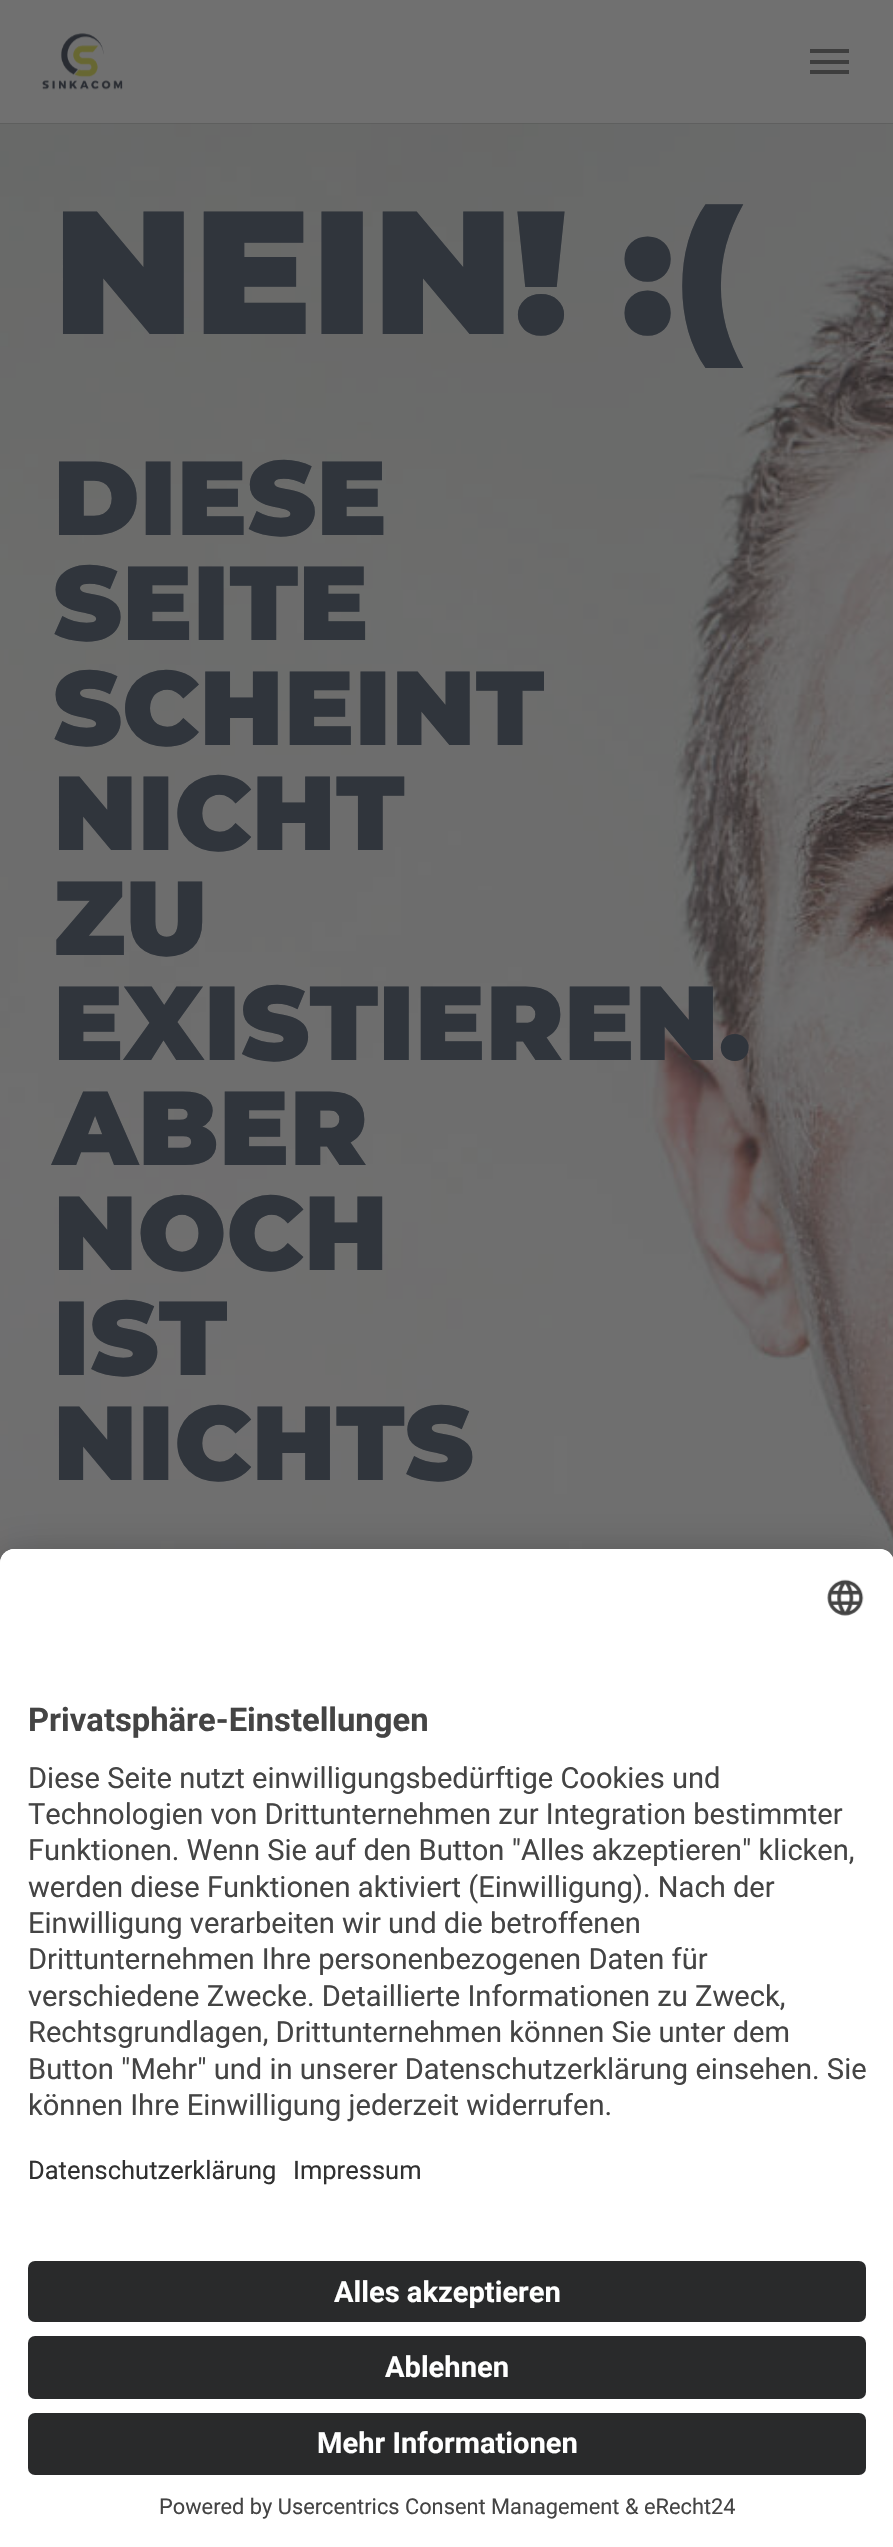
#include "include/core/SkBlurTypes.h"
#include "include/core/SkCanvas.h"
#include "include/core/SkData.h"
#include "include/core/SkFont.h"
#include "include/core/SkFontMgr.h"
#include "include/core/SkImage.h"
#include "include/core/SkMaskFilter.h"
#include "include/core/SkPaint.h"
#include "include/core/SkPathBuilder.h"
#include "include/core/SkTextBlob.h"
#include "include/effects/SkDashPathEffect.h"
#include "include/effects/SkGradientShader.h"
#include "include/utils/SkParsePath.h"

extern sk_sp<SkFontMgr> fontMgr;

void draw(SkCanvas* canvas) {
    SkPaint p;
    p.setAntiAlias(true);
    auto font = [&](const char* family, int weight, float size, bool italic = false) {
        SkFontStyle style(weight, SkFontStyle::kNormal_Width,
            italic ? SkFontStyle::kItalic_Slant : SkFontStyle::kUpright_Slant);
        SkFont result(fontMgr->matchFamilyStyle(family, style), size);
        result.setSubpixel(true);
        return result;
    };
    auto drawPhoto = [&](const char* path, float l, float t, float r, float b) {
        auto image = SkImages::DeferredFromEncodedData(SkData::MakeFromFileName(path));
        canvas->drawImageRect(image, SkRect::MakeLTRB(l, t, r, b), SkSamplingOptions());
    };
    canvas->clear(0xFFFFFFFF);
    drawPhoto("media/2.png", 0, 123, 893, 1563);
    p.setColor(0x26242424);
    canvas->drawRect(SkRect::MakeLTRB(0, 123, 893, 124), p);
    p.setColor(0xFF707070);
    canvas->drawRect(SkRect::MakeLTRB(0, 0, 893, 123), p);
    drawPhoto("media/1.png", 42, 33, 123, 90);
    {
        const struct { float l, t, r, b; SkColor color; } items[] = {
            {810, 60, 849, 64, 0xFF3E3E3E},
            {810, 49, 849, 53, 0xFF3E3E3E},
            {810, 70, 849, 74, 0xFF3E3E3E},
        };
        for (auto [l, t, r, b, color] : items) {
            p.setColor(color);
            canvas->drawRect(SkRect::MakeLTRB(l, t, r, b), p);
        }
    }
    auto font1 = font("Montserrat", 900, 175);
    p.setColor(0xFF30353C);
    canvas->drawString("NEIN! :(", 53, 334, font1, p);
    auto font2 = font("Montserrat", 900, 105);
    {
        const struct { const char* s; float x, y; } items[] = {
            {"DIESE", 53, 535},
            {"SEITE", 53, 640},
            {"SCHEINT", 53, 745},
            {"NICHT", 53, 850},
            {"ZU", 53, 955},
            {"EXISTIEREN.", 53, 1060},
            {"ABER", 53, 1165},
            {"NOCH", 53, 1270},
            {"IST", 53, 1375},
            {"NICHTS", 53, 1480},
        };
        for (auto [s, x, y] : items) {
            canvas->drawString(s, x, y, font2, p);
        }
    }
    p.setColor(0x4D000000);
    p.setMaskFilter(SkMaskFilter::MakeBlur(kNormal_SkBlurStyle, 24.5f));
    canvas->drawRoundRect(SkRect::MakeLTRB(0, 1584, 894, 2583), 14, 14, p);
    p.setMaskFilter(nullptr);
    p.setColor(0x38000000);
    p.setMaskFilter(SkMaskFilter::MakeBlur(kNormal_SkBlurStyle, 23));
    canvas->drawRoundRect(SkRect::MakeLTRB(0, 1558, 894, 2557), 14, 14, p);
    p.setMaskFilter(nullptr);
    p.setColor(0xFFFFFFFF);
    canvas->drawPath(SkPathBuilder().moveTo(14, 1549).lineTo(880, 1549).cubicTo(887.5f, 1549, 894, 1555.5f, 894, 1563).lineTo(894, 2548).lineTo(0, 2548).lineTo(0, 1563).cubicTo(0, 1555.5f, 6.5f, 1549, 14, 1549).close().detach(), p);
    canvas->drawPath(SkPathBuilder().moveTo(14, 1549).lineTo(880, 1549).cubicTo(887.5f, 1549, 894, 1555.5f, 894, 1563).lineTo(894, 2240).lineTo(0, 2240).lineTo(0, 1563).cubicTo(0, 1555.5f, 6.5f, 1549, 14, 1549).close().detach(), p);
    drawPhoto("media/3.png", 827, 1579, 864, 1616);
    auto font3 = font("Roboto", 700, 32.75f);
    p.setColor(0xFF444444);
    canvas->drawString("Privatsphäre-Einstellungen", 28, 1731, font3, p);
    auto font4 = font("Roboto", 400, 29.1f);
    {
        const struct { const char* s; float x, y; } items[] = {
            {"Diese Seite nutzt einwilligungsbedürftige Cookies und", 28, 1788},
            {"Technologien von Drittunternehmen zur Integration bestimmter", 28, 1824},
            {"Funktionen. Wenn Sie auf den Button \"Alles akzeptieren\" klicken,", 28, 1860},
            {"werden diese Funktionen aktiviert (Einwilligung). Nach der", 28, 1897},
            {"Einwilligung verarbeiten wir und die betroffenen", 28, 1933},
            {"Drittunternehmen Ihre personenbezogenen Daten für", 28, 1969},
            {"verschiedene Zwecke. Detaillierte Informationen zu Zweck,", 28, 2006},
            {"Rechtsgrundlagen, Drittunternehmen können Sie unter dem", 28, 2042},
            {"Button \"Mehr\" und in unserer Datenschutzerklärung einsehen. Sie", 28, 2079},
            {"können Ihre Einwilligung jederzeit widerrufen.", 28, 2115},
        };
        for (auto [s, x, y] : items) {
            canvas->drawString(s, x, y, font4, p);
        }
    }
    auto font5 = font("Roboto", 400, 25.5f);
    p.setColor(0xFF303030);
    canvas->drawString("Datenschutzerklärung", 28, 2179, font5, p);
    canvas->drawString("Impressum", 293, 2179, font5, p);
    p.setColor(0xFF292A2B);
    canvas->drawRoundRect(SkRect::MakeLTRB(28, 2261, 866, 2322), 7, 7, p);
    auto font6 = font("Roboto", 700, 29.1f);
    p.setColor(0xFFFFFFFF);
    canvas->drawString("Alles akzeptieren", 334, 2302, font6, p);
    p.setColor(0xFF292A2B);
    canvas->drawRoundRect(SkRect::MakeLTRB(28, 2336, 866, 2399), 7, 7, p);
    p.setColor(0xFFFFFFFF);
    canvas->drawString("Ablehnen", 385, 2377, font6, p);
    p.setColor(0xFF292A2B);
    canvas->drawRoundRect(SkRect::MakeLTRB(28, 2413, 866, 2475), 7, 7, p);
    p.setColor(0xFFFFFFFF);
    canvas->drawString("Mehr Informationen", 317, 2453, font6, p);
    auto font7 = font("Roboto", 400, 21.8f);
    p.setColor(0xFF444444);
    canvas->drawString("Powered by Usercentrics Consent Management", 159, 2514, font7, p);
    canvas->drawString("& eRecht24", 625, 2514, font7, p);
}
